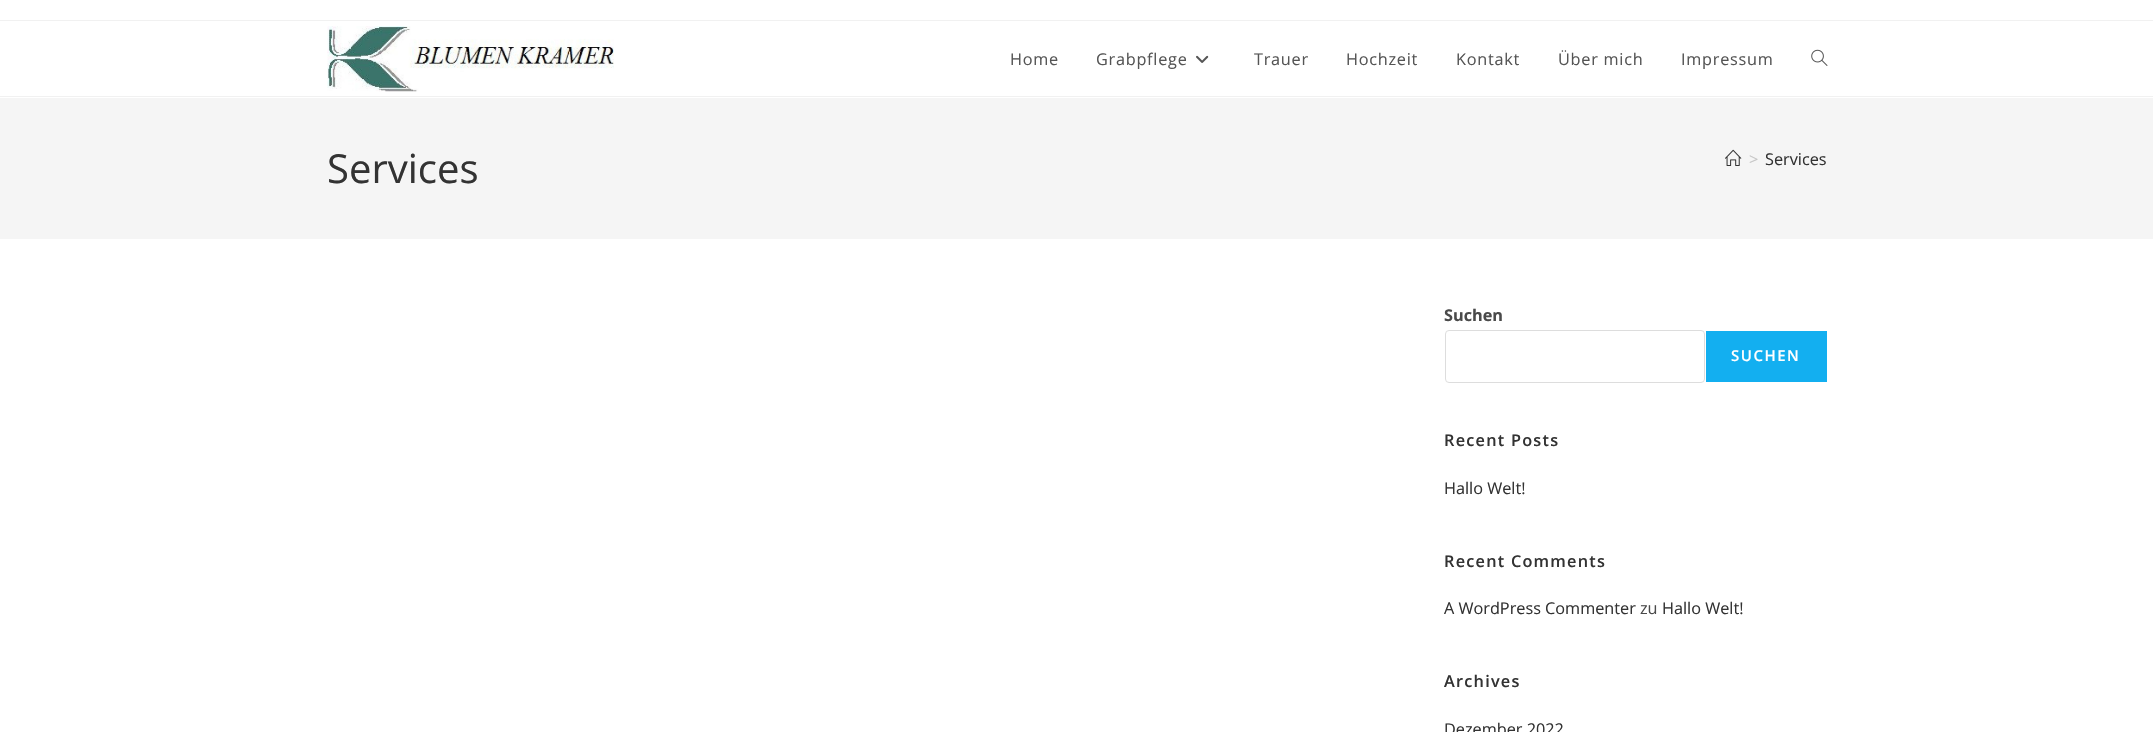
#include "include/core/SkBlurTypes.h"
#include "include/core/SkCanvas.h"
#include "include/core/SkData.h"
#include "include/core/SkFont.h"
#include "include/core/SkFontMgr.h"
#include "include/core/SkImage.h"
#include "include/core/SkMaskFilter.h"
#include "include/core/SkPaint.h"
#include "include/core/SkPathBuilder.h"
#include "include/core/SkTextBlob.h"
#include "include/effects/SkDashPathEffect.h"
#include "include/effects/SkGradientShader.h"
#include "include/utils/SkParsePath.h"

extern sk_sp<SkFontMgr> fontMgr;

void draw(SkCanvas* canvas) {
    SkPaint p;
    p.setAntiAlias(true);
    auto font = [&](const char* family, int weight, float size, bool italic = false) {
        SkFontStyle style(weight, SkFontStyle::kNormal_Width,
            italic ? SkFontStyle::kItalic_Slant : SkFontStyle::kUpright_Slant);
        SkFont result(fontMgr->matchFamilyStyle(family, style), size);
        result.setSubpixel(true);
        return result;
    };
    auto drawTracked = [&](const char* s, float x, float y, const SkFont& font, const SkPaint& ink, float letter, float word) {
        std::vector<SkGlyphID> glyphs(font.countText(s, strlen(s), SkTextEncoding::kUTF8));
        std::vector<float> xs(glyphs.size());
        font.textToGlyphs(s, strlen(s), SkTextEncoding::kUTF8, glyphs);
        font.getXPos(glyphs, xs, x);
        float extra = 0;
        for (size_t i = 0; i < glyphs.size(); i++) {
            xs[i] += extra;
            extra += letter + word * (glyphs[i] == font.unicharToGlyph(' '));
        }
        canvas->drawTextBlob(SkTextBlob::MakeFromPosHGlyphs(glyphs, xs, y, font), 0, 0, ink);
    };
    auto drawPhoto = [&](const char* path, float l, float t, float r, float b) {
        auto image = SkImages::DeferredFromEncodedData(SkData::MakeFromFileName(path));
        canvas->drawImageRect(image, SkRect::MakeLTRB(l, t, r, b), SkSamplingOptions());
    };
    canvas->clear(0xFFFFFFFF);
    p.setColor(0xFFF1F1F1);
    canvas->drawRect(SkRect::MakeLTRB(0, 20, 2153, 21), p);
    canvas->drawRect(SkRect::MakeLTRB(0, 96, 2153, 97), p);
    drawPhoto("media/1.png", 327, 26, 614, 92);
    auto font1 = font("Open Sans", 400, 16.25f);
    p.setColor(0xFF555555);
    drawTracked("Home", 1010, 65, font1, p, 0.75f, 0);
    drawTracked("Grabpflege", 1096, 65, font1, p, 0.75f, 0);
    drawPhoto("media/2.png", 1196, 55, 1209, 63);
    {
        const struct { const char* s; float x, y; } items[] = {
            {"Trauer", 1254, 65},
            {"Hochzeit", 1346, 65},
            {"Kontakt", 1456, 65},
            {"Über mich", 1558, 65},
            {"Impressum", 1681, 65},
        };
        for (auto [s, x, y] : items) {
            drawTracked(s, x, y, font1, p, 0.75f, 0);
        }
    }
    drawPhoto("media/3.png", 1811, 49, 1828, 66);
    p.setColor(0xFFF5F5F5);
    canvas->drawRect(SkRect::MakeLTRB(0, 98, 2153, 239), p);
    auto font2 = font("Open Sans", 400, 40);
    p.setColor(0xFF333333);
    canvas->drawString("Services", 327, 183, font2, p);
    drawPhoto("media/4.png", 1725, 149, 1742, 166);
    p.setColor(0xFFC6C6C6);
    canvas->drawString(">", 1749, 165, font1, p);
    p.setColor(0xFF333333);
    canvas->drawString("Services", 1765, 165, font1, p);
    auto font3 = font("Open Sans", 700, 16.25f);
    p.setColor(0xFF4A4A4A);
    canvas->drawString("Suchen", 1444, 321, font3, p);
    p.setStyle(SkPaint::kStroke_Style);
    p.setStrokeWidth(1);
    p.setColor(0xFFDDDDDD);
    canvas->drawRoundRect(SkRect::MakeLTRB(1445.5f, 330.5f, 1704.5f, 382.5f), 3.5f, 3.5f, p);
    p.setStyle(SkPaint::kFill_Style);
    p.setColor(0xFF13AFF0);
    canvas->drawRect(SkRect::MakeLTRB(1706, 331, 1827, 382), p);
    auto font4 = font("Open Sans", 600, 15);
    p.setColor(0xFFFFFFFF);
    drawTracked("SUCHEN", 1731, 361, font4, p, 1.5f, 0);
    auto font5 = font("Open Sans", 600, 16.25f);
    p.setColor(0xFF333333);
    drawTracked("Recent Posts", 1444, 446, font5, p, 1.25f, 0);
    canvas->drawString("Hallo Welt!", 1444, 494, font1, p);
    drawTracked("Recent Comments", 1444, 567, font5, p, 1.25f, 0);
    canvas->drawString("A WordPress Commenter", 1444, 614, font1, p);
    p.setColor(0xFF4A4A4A);
    canvas->drawString("zu", 1640, 614, font1, p);
    p.setColor(0xFF333333);
    canvas->drawString("Hallo Welt!", 1662, 614, font1, p);
    drawTracked("Archives", 1444, 687, font5, p, 1.25f, 0);
    canvas->drawString("Dezember 2022", 1444, 735, font1, p);
}
